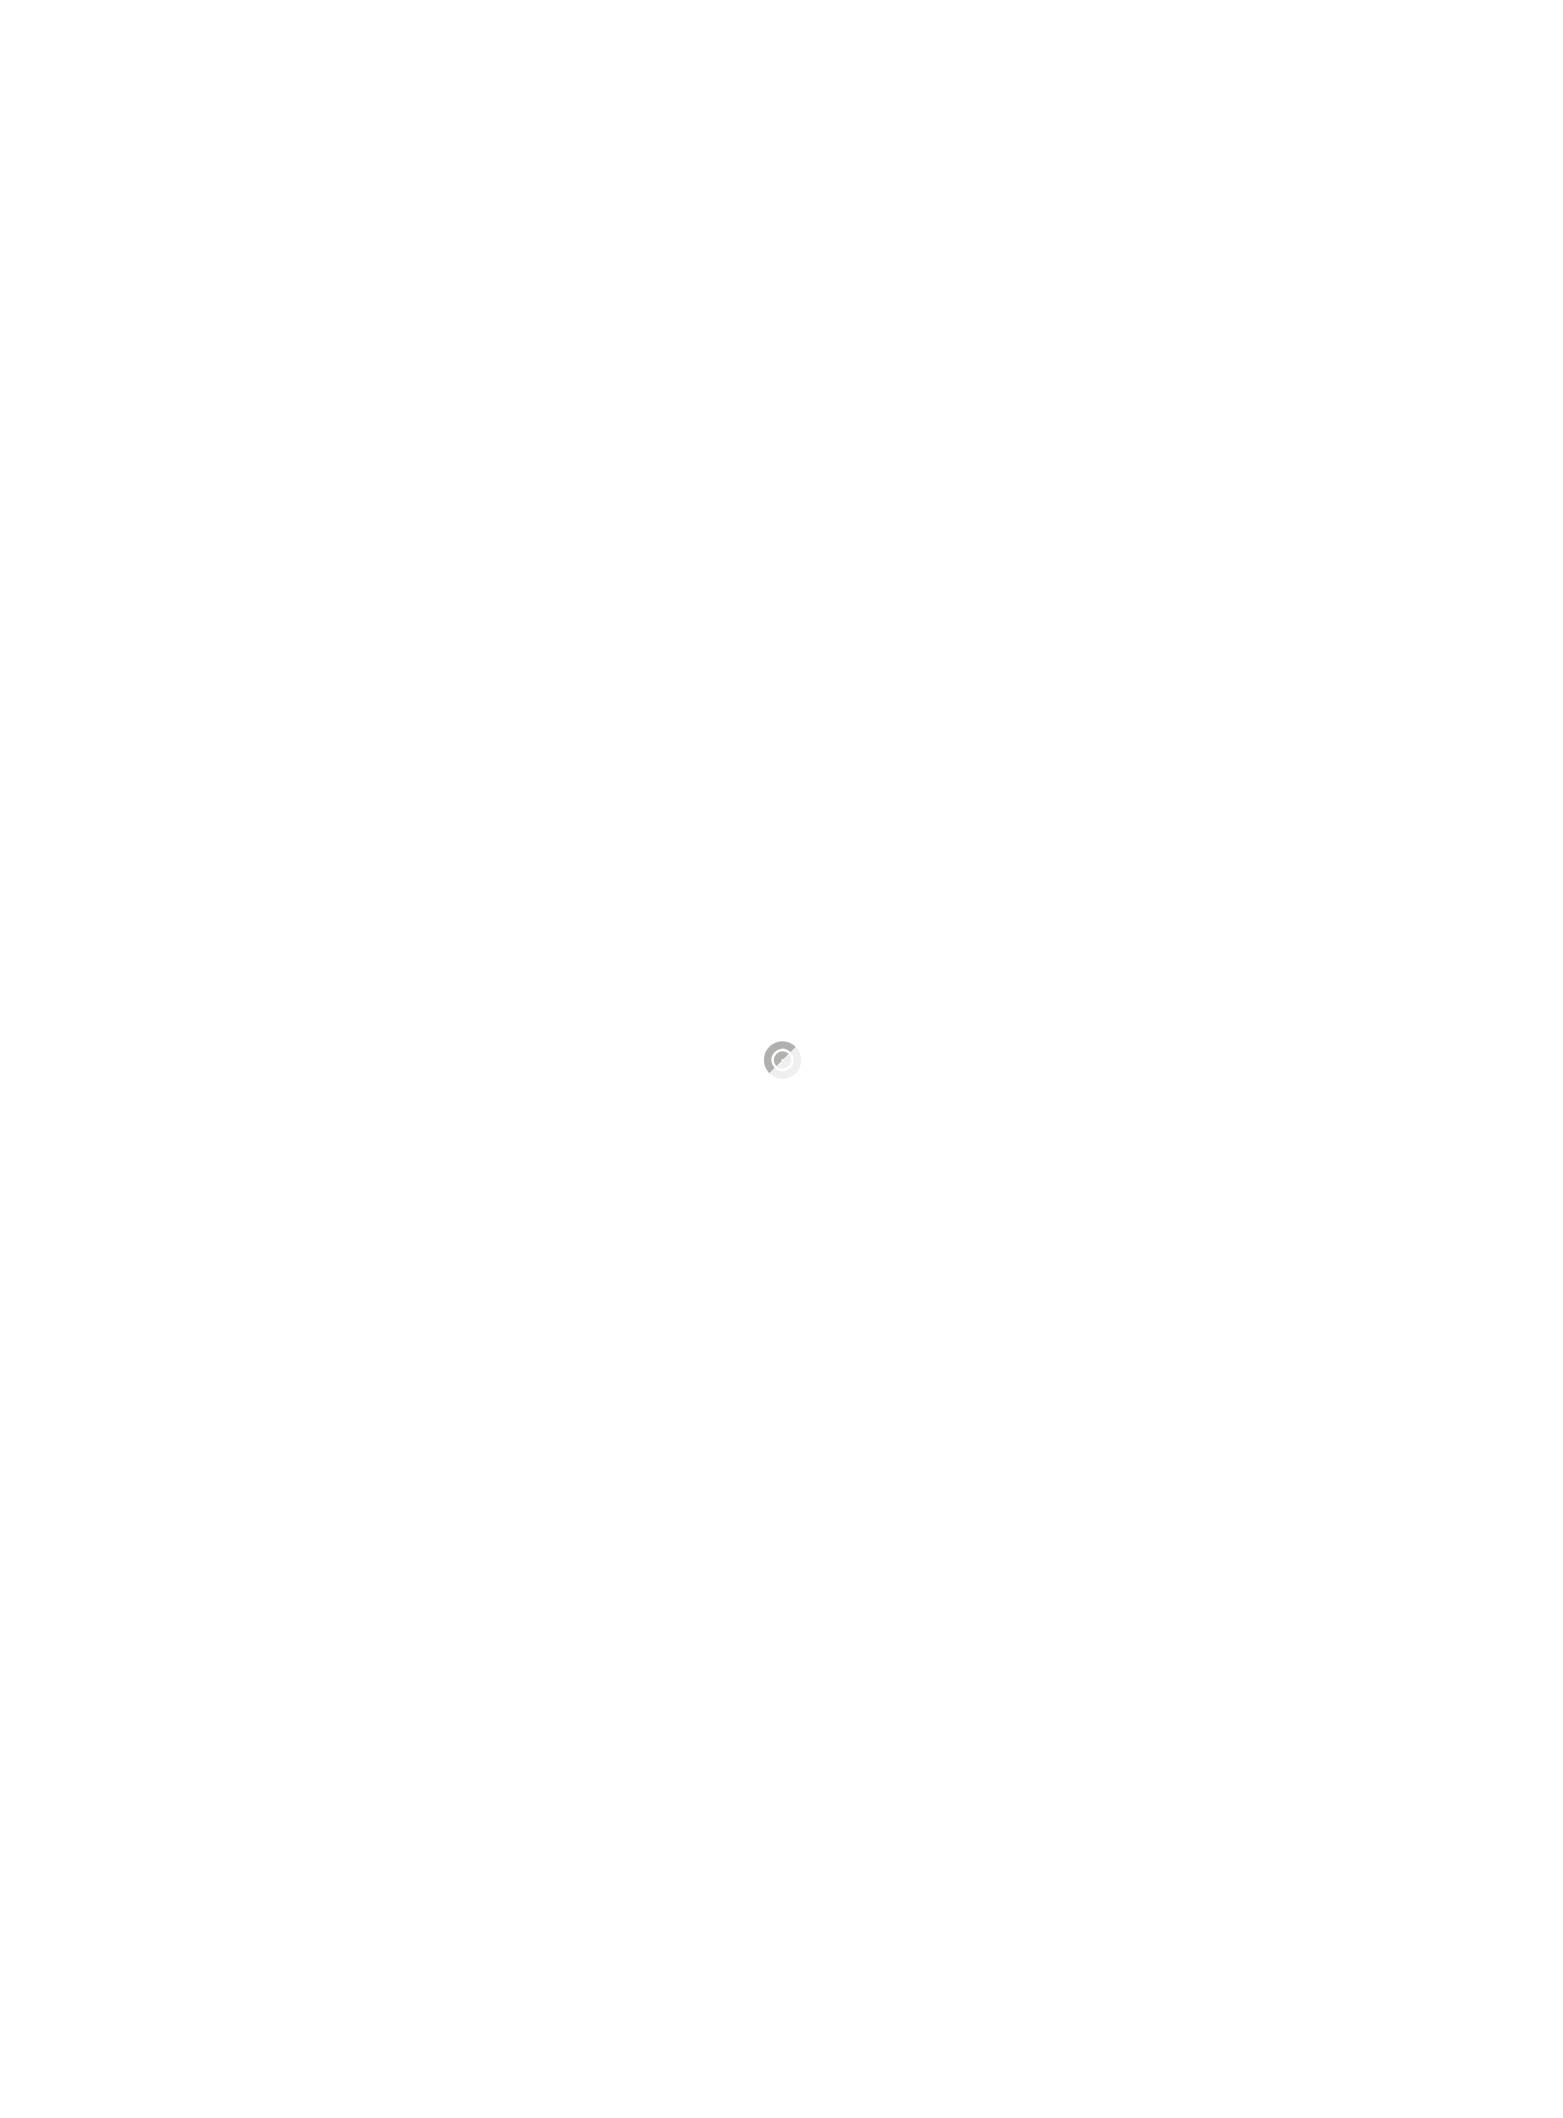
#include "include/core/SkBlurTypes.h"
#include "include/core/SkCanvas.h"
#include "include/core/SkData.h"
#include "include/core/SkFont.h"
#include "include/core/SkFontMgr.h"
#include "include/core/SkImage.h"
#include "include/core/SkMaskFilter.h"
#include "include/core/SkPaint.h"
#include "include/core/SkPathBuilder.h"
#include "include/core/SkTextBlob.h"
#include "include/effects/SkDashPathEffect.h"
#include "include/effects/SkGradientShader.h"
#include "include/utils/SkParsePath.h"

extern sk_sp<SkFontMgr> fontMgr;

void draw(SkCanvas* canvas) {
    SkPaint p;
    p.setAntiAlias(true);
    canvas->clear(0xFFFFFFFF);
    p.setStyle(SkPaint::kStroke_Style);
    p.setStrokeWidth(7.5f);
    p.setColor(0xFFEFEFEF);
    canvas->drawPath(SkPathBuilder().moveTo(786, 1056.5f).cubicTo(790.5f, 1061, 783.5f, 1068, 779, 1063.5f).detach(), p);
    p.setColor(0xFFB0B0AF);
    canvas->drawPath(SkPathBuilder().moveTo(779, 1063.5f).cubicTo(774.5f, 1059, 781.5f, 1052, 786, 1056.5f).detach(), p);
    p.setColor(0xFFEFEFEF);
    canvas->drawPath(SkPathBuilder().moveTo(793, 1049.5f).cubicTo(795, 1051.5f, 796.5f, 1054, 797, 1057).cubicTo(800, 1071.5f, 782.5f, 1081, 772, 1070.5f).detach(), p);
    p.setColor(0xFFB0B0AF);
    canvas->drawPath(SkPathBuilder().moveTo(772, 1070.5f).cubicTo(770, 1068.5f, 768.5f, 1066, 768, 1063).cubicTo(765, 1048.5f, 782.5f, 1039, 793, 1049.5f).detach(), p);
}
